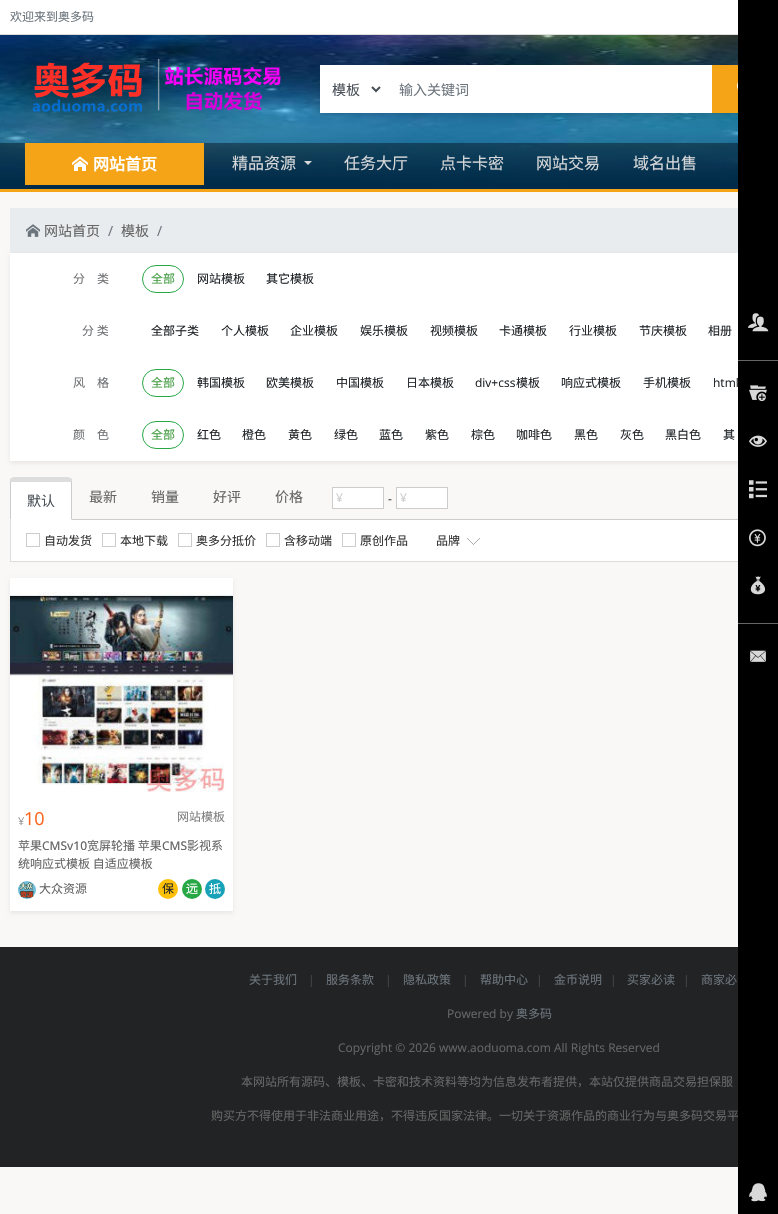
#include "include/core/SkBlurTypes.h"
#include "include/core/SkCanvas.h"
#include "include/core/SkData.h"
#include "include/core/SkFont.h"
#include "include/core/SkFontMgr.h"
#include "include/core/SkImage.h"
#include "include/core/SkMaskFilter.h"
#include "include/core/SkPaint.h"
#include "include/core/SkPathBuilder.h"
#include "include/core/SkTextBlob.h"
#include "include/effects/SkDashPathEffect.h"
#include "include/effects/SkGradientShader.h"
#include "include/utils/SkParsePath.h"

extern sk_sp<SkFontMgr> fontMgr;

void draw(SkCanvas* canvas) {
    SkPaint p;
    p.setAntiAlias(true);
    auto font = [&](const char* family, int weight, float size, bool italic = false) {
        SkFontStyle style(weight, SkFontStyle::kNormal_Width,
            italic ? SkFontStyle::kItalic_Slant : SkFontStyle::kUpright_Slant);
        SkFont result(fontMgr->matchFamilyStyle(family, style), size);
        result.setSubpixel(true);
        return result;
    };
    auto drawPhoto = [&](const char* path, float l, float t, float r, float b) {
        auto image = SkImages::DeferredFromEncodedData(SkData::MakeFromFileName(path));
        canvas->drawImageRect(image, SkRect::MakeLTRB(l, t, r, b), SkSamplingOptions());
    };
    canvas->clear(0xFFF9F8F7);
    p.setColor(0xFFFFFFFF);
    canvas->drawRect(SkRect::MakeLTRB(0, 0, 738, 34), p);
    p.setColor(0xFFDDDDDD);
    canvas->drawRect(SkRect::MakeLTRB(0, 34, 738, 35), p);
    auto font1 = font("Noto Sans CJK SC", 400, 12);
    p.setColor(0xFF6C757D);
    canvas->drawString("欢迎来到奥多码", 10, 21, font1, p);
    drawPhoto("media/9.png", 0, 35, 738, 189);
    p.setColor(0x12000000);
    p.setMaskFilter(SkMaskFilter::MakeBlur(kNormal_SkBlurStyle, 2));
    canvas->drawRect(SkRect::MakeLTRB(320, 67, 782, 115), p);
    p.setMaskFilter(nullptr);
    p.setColor(0xFFE9ECEF);
    canvas->drawRect(SkRect::MakeLTRB(10, 208, 738, 253), p);
    p.setColor(0x12000000);
    p.setMaskFilter(SkMaskFilter::MakeBlur(kNormal_SkBlurStyle, 2));
    canvas->drawRect(SkRect::MakeLTRB(10, 255, 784, 463), p);
    p.setMaskFilter(nullptr);
    p.setColor(0xFF222324);
    canvas->drawRect(SkRect::MakeLTRB(0, 947, 738, 1167), p);
    p.setColor(0xFF666666);
    canvas->drawString("购买方不得使用于非法商业用途，不得违反国家法律。一切关于资源作品的商业行为与奥多码交易平", 211, 1120, font1, p);
    p.setColor(0xFF000000);
    canvas->drawRect(SkRect::MakeLTRB(738, 0, 778, 1214), p);
    drawPhoto("media/1.png", 748, 313, 769, 332);
    p.setColor(0xFF666666);
    canvas->drawRect(SkRect::MakeLTRB(738, 360, 778, 361), p);
    drawPhoto("media/2.png", 749, 385, 767, 402);
    drawPhoto("media/3.png", 749, 435, 767, 447);
    drawPhoto("media/4.png", 749, 480, 767, 499);
    drawPhoto("media/5.png", 749, 529, 766, 547);
    drawPhoto("media/6.png", 750, 576, 766, 595);
    canvas->drawRect(SkRect::MakeLTRB(738, 623, 778, 624), p);
    drawPhoto("media/7.png", 750, 650, 766, 662);
    drawPhoto("media/8.png", 749, 1183, 767, 1202);
    p.setColor(0xFFF5A418);
    canvas->drawRect(SkRect::MakeLTRB(0, 189, 738, 192), p);
    drawPhoto("media/10.png", 32, 59, 281, 112);
    p.setColor(0xFFFFFFFF);
    canvas->drawRect(SkRect::MakeLTRB(320, 65, 383, 113), p);
    p.setStyle(SkPaint::kStroke_Style);
    p.setStrokeWidth(2);
    p.setColor(0xFF495057);
    canvas->drawPath(SkPathBuilder().moveTo(372, 87).lineTo(376, 91).lineTo(380, 87).detach(), p);
    auto font2 = font("Noto Sans CJK SC", 400, 14);
    p.setStyle(SkPaint::kFill_Style);
    canvas->drawString("模板", 332, 95, font2, p);
    {
        const struct { float l, t, r, b; SkColor color; } items[] = {
            {383, 66, 712, 112, 0xFFFFFFFF},
            {383, 65, 713, 66, 0xFFFFFFFF},
            {383, 112, 713, 113, 0xFFFFFFFF},
        };
        for (auto [l, t, r, b, color] : items) {
            p.setColor(color);
            canvas->drawRect(SkRect::MakeLTRB(l, t, r, b), p);
        }
    }
    p.setColor(0xFF6C757D);
    canvas->drawString("输入关键词", 399, 95, font2, p);
    p.setColor(0xFFF5A418);
    canvas->drawRect(SkRect::MakeLTRB(712, 65, 738, 113), p);
    drawPhoto("media/11.png", 737, 82, 738, 90);
    p.setColor(0x66000000);
    canvas->drawRect(SkRect::MakeLTRB(0, 143, 738, 189), p);
    p.setColor(0xFFF5A418);
    canvas->drawRect(SkRect::MakeLTRB(25, 143, 204, 185), p);
    drawPhoto("media/12.png", 72, 156, 88, 171);
    auto font3 = font("Noto Sans CJK SC", 700, 16);
    p.setColor(0xFFFFFFFF);
    canvas->drawString("网站首页", 93, 170, font3, p);
    auto font4 = font("Noto Sans CJK SC", 400, 16);
    p.setColor(0xFFD6D8D9);
    canvas->drawString("精品资源", 232, 169, font4, p);
    canvas->drawPath(SkPathBuilder().moveTo(304, 161).lineTo(312, 161).lineTo(308, 165).close().detach(), p);
    {
        const struct { const char* s; float x, y; } items[] = {
            {"任务大厅", 344, 169},
            {"点卡卡密", 440, 169},
            {"网站交易", 536, 169},
            {"域名出售", 633, 169},
        };
        for (auto [s, x, y] : items) {
            canvas->drawString(s, x, y, font4, p);
        }
    }
    drawPhoto("media/13.png", 26, 224, 40, 237);
    p.setColor(0xFF666666);
    canvas->drawString("网站首页", 44, 236, font2, p);
    auto font5 = font("Open Sans", 400, 14);
    p.setColor(0xFF6C757D);
    canvas->drawString("/", 108, 236, font5, p);
    p.setColor(0xFF666666);
    canvas->drawString("模板", 121, 236, font2, p);
    p.setColor(0xFF6C757D);
    canvas->drawString("/", 157, 236, font5, p);
    p.setColor(0xFFFFFFFF);
    canvas->drawRect(SkRect::MakeLTRB(10, 253, 738, 461), p);
    p.setColor(0xFF6F7174);
    canvas->drawString("分　类", 73, 283, font1, p);
    p.setStyle(SkPaint::kStroke_Style);
    p.setStrokeWidth(1);
    p.setColor(0xFF28A745);
    canvas->drawRoundRect(SkRect::MakeLTRB(142.5f, 265.5f, 183.5f, 292.5f), 13.5f, 13.5f, p);
    p.setStyle(SkPaint::kFill_Style);
    p.setColor(0xFF449D44);
    canvas->drawString("全部", 151, 283, font1, p);
    p.setColor(0xFF212529);
    canvas->drawString("网站模板", 197, 283, font1, p);
    canvas->drawString("其它模板", 266, 283, font1, p);
    p.setColor(0xFF6F7174);
    canvas->drawString("分 类", 82, 335, font1, p);
    p.setColor(0xFF212529);
    {
        const struct { const char* s; float x, y; } items[] = {
            {"全部子类", 151, 335},
            {"个人模板", 221, 335},
            {"企业模板", 290, 335},
            {"娱乐模板", 360, 335},
            {"视频模板", 430, 335},
            {"卡通模板", 499, 335},
            {"行业模板", 569, 335},
            {"节庆模板", 639, 335},
            {"相册", 708, 335},
        };
        for (auto [s, x, y] : items) {
            canvas->drawString(s, x, y, font1, p);
        }
    }
    p.setColor(0xFF6F7174);
    canvas->drawString("风　格", 73, 387, font1, p);
    p.setStyle(SkPaint::kStroke_Style);
    p.setColor(0xFF28A745);
    canvas->drawRoundRect(SkRect::MakeLTRB(142.5f, 369.5f, 183.5f, 396.5f), 13.5f, 13.5f, p);
    p.setStyle(SkPaint::kFill_Style);
    p.setColor(0xFF449D44);
    canvas->drawString("全部", 151, 387, font1, p);
    p.setColor(0xFF212529);
    {
        const struct { const char* s; float x, y; } items[] = {
            {"韩国模板", 197, 387},
            {"欧美模板", 266, 387},
            {"中国模板", 336, 387},
            {"日本模板", 406, 387},
        };
        for (auto [s, x, y] : items) {
            canvas->drawString(s, x, y, font1, p);
        }
    }
    auto font6 = font("Open Sans", 400, 12);
    canvas->drawString("div+css", 475, 387, font6, p);
    {
        const struct { const char* s; float x, y; } items[] = {
            {"模板", 516, 387},
            {"响应式模板", 561, 387},
            {"手机模板", 643, 387},
        };
        for (auto [s, x, y] : items) {
            canvas->drawString(s, x, y, font1, p);
        }
    }
    canvas->drawString("html", 713, 387, font6, p);
    p.setColor(0xFF6F7174);
    canvas->drawString("颜　色", 73, 439, font1, p);
    p.setStyle(SkPaint::kStroke_Style);
    p.setColor(0xFF28A745);
    canvas->drawRoundRect(SkRect::MakeLTRB(142.5f, 421.5f, 183.5f, 448.5f), 13.5f, 13.5f, p);
    p.setStyle(SkPaint::kFill_Style);
    p.setColor(0xFF449D44);
    canvas->drawString("全部", 151, 439, font1, p);
    p.setColor(0xFF212529);
    {
        const struct { const char* s; float x, y; } items[] = {
            {"红色", 197, 439},
            {"橙色", 242, 439},
            {"黄色", 288, 439},
            {"绿色", 334, 439},
            {"蓝色", 379, 439},
            {"紫色", 425, 439},
            {"棕色", 471, 439},
            {"咖啡色", 516, 439},
            {"黑色", 574, 439},
            {"灰色", 620, 439},
            {"黑白色", 665, 439},
            {"其", 723, 439},
        };
        for (auto [s, x, y] : items) {
            canvas->drawString(s, x, y, font1, p);
        }
    }
    p.setColor(0xFFCCCCCC);
    canvas->drawRect(SkRect::MakeLTRB(72, 519, 738, 520), p);
    p.setColor(0xFFFFFFFF);
    canvas->drawPath(SkPathBuilder().moveTo(14, 477).lineTo(68, 477).cubicTo(70, 477, 72, 479, 72, 481).lineTo(72, 520).lineTo(10, 520).lineTo(10, 481).cubicTo(10, 479, 12, 477, 14, 477).close().detach(), p);
    p.setColor(0xFFDDDDDD);
    canvas->drawPath(SkPathBuilder().moveTo(14, 477).cubicTo(13, 477, 11, 478, 10, 479).lineTo(11, 482).lineTo(71, 482).lineTo(72, 479).cubicTo(71, 478, 69, 477, 68, 477).close().detach(), p);
    p.setColor(0xFFCCCCCC);
    canvas->drawPath(SkPathBuilder().moveTo(72, 520).lineTo(72, 481).lineTo(72, 479).lineTo(71, 482).lineTo(71, 519).close().moveTo(10, 520).lineTo(11, 519).lineTo(11, 482).lineTo(10, 479).lineTo(10, 481).close().detach(), p);
    p.setColor(0xFF495057);
    canvas->drawString("默认", 27, 506, font2, p);
    p.setColor(0xFF666666);
    {
        const struct { const char* s; float x, y; } items[] = {
            {"最新", 89, 502},
            {"销量", 151, 502},
            {"好评", 213, 502},
            {"价格", 275, 502},
        };
        for (auto [s, x, y] : items) {
            canvas->drawString(s, x, y, font2, p);
        }
    }
    p.setColor(0xFFFFFFFF);
    canvas->drawRect(SkRect::MakeLTRB(332.5f, 487.5f, 383.5f, 508.5f), p);
    p.setStyle(SkPaint::kStroke_Style);
    p.setColor(0xFFCCCCCC);
    canvas->drawRect(SkRect::MakeLTRB(332.5f, 487.5f, 383.5f, 508.5f), p);
    p.setStyle(SkPaint::kFill_Style);
    canvas->drawString("¥", 336, 502, font6, p);
    p.setColor(0xFF333333);
    canvas->drawString("-", 388, 503, font6, p);
    p.setColor(0xFFFFFFFF);
    canvas->drawRect(SkRect::MakeLTRB(396.5f, 487.5f, 447.5f, 508.5f), p);
    p.setStyle(SkPaint::kStroke_Style);
    p.setColor(0xFFCCCCCC);
    canvas->drawRect(SkRect::MakeLTRB(396.5f, 487.5f, 447.5f, 508.5f), p);
    p.setStyle(SkPaint::kFill_Style);
    canvas->drawString("¥", 400, 502, font6, p);
    {
        const struct { float l, t, r, b; SkColor color; } items[] = {
            {11, 520, 738, 561, 0xFFFFFFFF},
            {10, 561, 738, 562, 0xFFDDDDDD},
            {10, 520, 11, 562, 0xFFDDDDDD},
        };
        for (auto [l, t, r, b, color] : items) {
            p.setColor(color);
            canvas->drawRect(SkRect::MakeLTRB(l, t, r, b), p);
        }
    }
    p.setStyle(SkPaint::kStroke_Style);
    p.setColor(0xFFCCCCCC);
    canvas->drawRect(SkRect::MakeLTRB(26.5f, 533.5f, 39.5f, 546.5f), p);
    p.setStyle(SkPaint::kFill_Style);
    p.setColor(0xFF333333);
    canvas->drawString("自动发货", 44, 545, font1, p);
    p.setStyle(SkPaint::kStroke_Style);
    p.setColor(0xFFCCCCCC);
    canvas->drawRect(SkRect::MakeLTRB(102.5f, 533.5f, 115.5f, 546.5f), p);
    p.setStyle(SkPaint::kFill_Style);
    p.setColor(0xFF333333);
    canvas->drawString("本地下载", 120, 545, font1, p);
    p.setStyle(SkPaint::kStroke_Style);
    p.setColor(0xFFCCCCCC);
    canvas->drawRect(SkRect::MakeLTRB(178.5f, 533.5f, 191.5f, 546.5f), p);
    p.setStyle(SkPaint::kFill_Style);
    p.setColor(0xFF333333);
    canvas->drawString("奥多分抵价", 196, 545, font1, p);
    p.setStyle(SkPaint::kStroke_Style);
    p.setColor(0xFFCCCCCC);
    canvas->drawRect(SkRect::MakeLTRB(266.5f, 533.5f, 279.5f, 546.5f), p);
    p.setStyle(SkPaint::kFill_Style);
    p.setColor(0xFF333333);
    canvas->drawString("含移动端", 284, 545, font1, p);
    p.setStyle(SkPaint::kStroke_Style);
    p.setColor(0xFFCCCCCC);
    canvas->drawRect(SkRect::MakeLTRB(342.5f, 533.5f, 355.5f, 546.5f), p);
    p.setStyle(SkPaint::kFill_Style);
    p.setColor(0xFF333333);
    canvas->drawString("原创作品", 360, 545, font1, p);
    canvas->drawString("品牌", 436, 545, font1, p);
    drawPhoto("media/14.png", 467, 538, 480, 545);
    p.setColor(0x12000000);
    p.setMaskFilter(SkMaskFilter::MakeBlur(kNormal_SkBlurStyle, 2));
    canvas->drawRect(SkRect::MakeLTRB(10, 580, 233, 913), p);
    p.setMaskFilter(nullptr);
    p.setColor(0xFFFFFFFF);
    canvas->drawRect(SkRect::MakeLTRB(10, 578, 233, 911), p);
    drawPhoto("media/15.png", 10, 592, 233, 792);
    auto font7 = font("Open Sans", 400, 11);
    p.setColor(0xFF999999);
    canvas->drawString("¥", 18, 825, font7, p);
    auto font8 = font("Open Sans", 400, 18);
    p.setColor(0xFFFA661E);
    canvas->drawString("10", 24, 825, font8, p);
    p.setColor(0xFF808080);
    canvas->drawString("网站模板", 177, 821, font1, p);
    p.setColor(0xFF666666);
    canvas->drawString("苹果", 18, 850, font1, p);
    auto font9 = font("Open Sans", 500, 12);
    canvas->drawString("CMSv10", 42, 850, font9, p);
    canvas->drawString("宽屏轮播 苹果", 87, 850, font1, p);
    canvas->drawString("CMS", 162, 850, font9, p);
    canvas->drawString("影视系", 187, 850, font1, p);
    canvas->drawString("统响应式模板 自适应模板", 18, 868, font1, p);
    drawPhoto("media/16.png", 18, 881, 36, 899);
    canvas->drawString("大众资源", 39, 893, font1, p);
    p.setColor(0xFFFFC107);
    canvas->drawCircle(168, 889, 10, p);
    p.setColor(0xFF212529);
    canvas->drawString("保", 162, 893, font1, p);
    p.setColor(0xFF28A745);
    canvas->drawCircle(192, 889, 10, p);
    p.setColor(0xFFFFFFFF);
    canvas->drawString("远", 186, 893, font1, p);
    p.setColor(0xFF17A2B8);
    canvas->drawCircle(215, 889, 10, p);
    p.setColor(0xFFFFFFFF);
    canvas->drawString("抵", 209, 893, font1, p);
    p.setColor(0xFF6C757D);
    canvas->drawString("关于我们", 249, 984, font1, p);
    p.setColor(0xFF444545);
    canvas->drawString("|", 308, 984, font6, p);
    p.setColor(0xFF6C757D);
    canvas->drawString("服务条款", 326, 984, font1, p);
    p.setColor(0xFF444545);
    canvas->drawString("|", 385, 984, font6, p);
    p.setColor(0xFF6C757D);
    canvas->drawString("隐私政策", 403, 984, font1, p);
    p.setColor(0xFF444545);
    canvas->drawString("|", 462, 984, font6, p);
    p.setColor(0xFF6C757D);
    canvas->drawString("帮助中心", 480, 984, font1, p);
    p.setColor(0xFF444545);
    canvas->drawString("|", 536, 984, font6, p);
    p.setColor(0xFF6C757D);
    canvas->drawString("金币说明", 554, 984, font1, p);
    p.setColor(0xFF444545);
    canvas->drawString("|", 610, 984, font6, p);
    p.setColor(0xFF6C757D);
    canvas->drawString("买家必读", 627, 984, font1, p);
    p.setColor(0xFF444545);
    canvas->drawString("|", 683, 984, font6, p);
    p.setColor(0xFF6C757D);
    canvas->drawString("商家必", 701, 984, font1, p);
    p.setColor(0xFF666666);
    canvas->drawString("Powered by", 447, 1018, font6, p);
    p.setColor(0xFF6C757D);
    canvas->drawString("奥多码", 516, 1018, font1, p);
    p.setColor(0xFF666666);
    canvas->drawString("Copyright © 2026 www.aoduoma.com All Rights Reserved", 338, 1052, font6, p);
    canvas->drawString("本网站所有源码、模板、卡密和技术资料等均为信息发布者提供，本站仅提供商品交易担保服", 241, 1086, font1, p);
}
